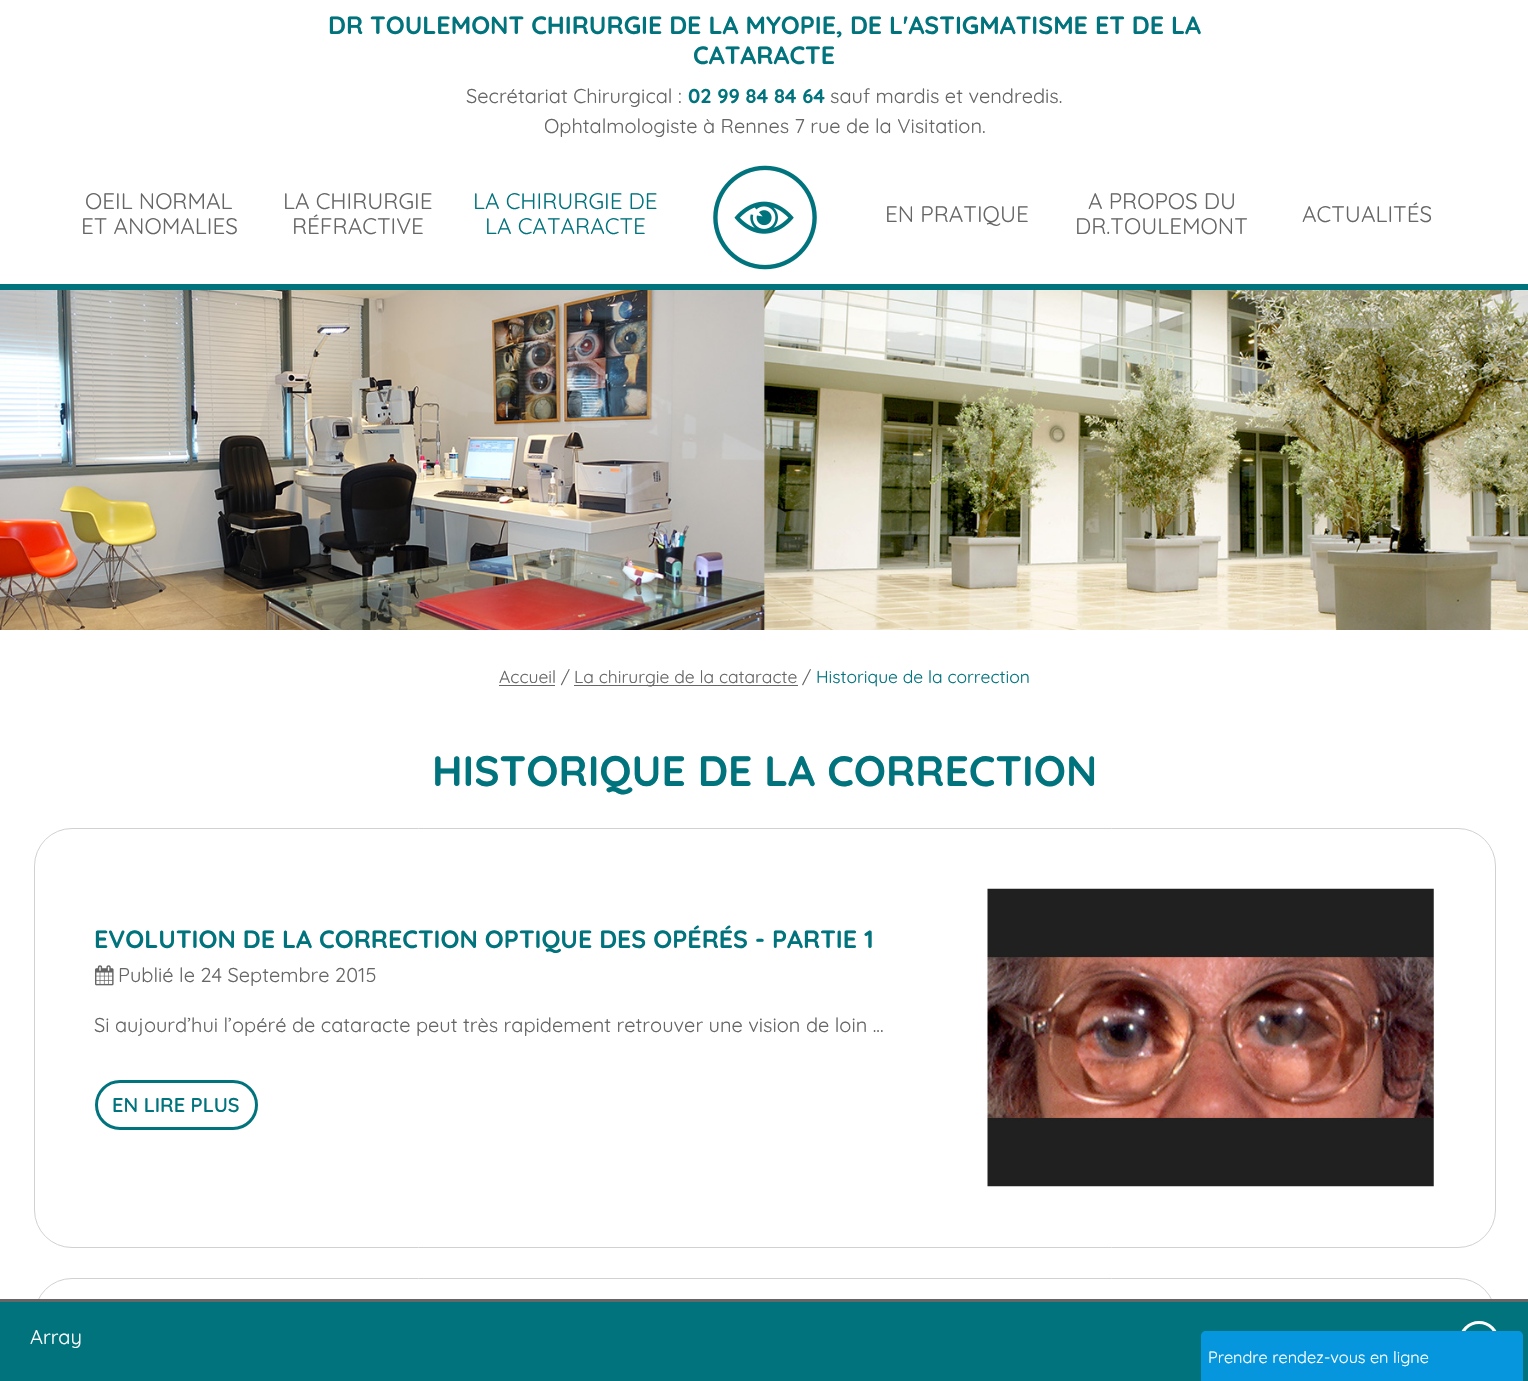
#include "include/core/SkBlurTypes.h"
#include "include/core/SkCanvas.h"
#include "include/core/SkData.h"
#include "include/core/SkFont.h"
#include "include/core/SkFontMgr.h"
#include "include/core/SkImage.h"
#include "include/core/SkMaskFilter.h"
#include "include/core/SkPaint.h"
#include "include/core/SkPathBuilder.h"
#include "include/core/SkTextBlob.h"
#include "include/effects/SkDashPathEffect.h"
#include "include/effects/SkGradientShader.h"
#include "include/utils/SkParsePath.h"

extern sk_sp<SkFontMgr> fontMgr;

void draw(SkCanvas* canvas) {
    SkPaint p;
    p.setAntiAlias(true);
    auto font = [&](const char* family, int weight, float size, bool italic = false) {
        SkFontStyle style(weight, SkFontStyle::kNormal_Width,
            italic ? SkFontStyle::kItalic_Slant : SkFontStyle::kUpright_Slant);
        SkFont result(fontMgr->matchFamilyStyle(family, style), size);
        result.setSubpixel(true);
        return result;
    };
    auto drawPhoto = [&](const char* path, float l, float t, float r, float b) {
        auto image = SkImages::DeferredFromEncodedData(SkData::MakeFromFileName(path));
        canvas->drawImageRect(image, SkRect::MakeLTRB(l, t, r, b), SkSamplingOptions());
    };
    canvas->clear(0xFFFFFFFF);
    auto font1 = font("Quicksand", 700, 25);
    p.setColor(0xFF01737D);
    canvas->drawString("DR TOULEMONT CHIRURGIE DE LA MYOPIE, DE L'ASTIGMATISME ET DE LA", 328, 34, font1, p);
    canvas->drawString("CATARACTE", 693, 64, font1, p);
    auto font2 = font("Quicksand", 400, 20);
    p.setColor(0xFF666666);
    canvas->drawString("Secrétariat Chirurgical :", 466, 103, font2, p);
    auto font3 = font("Quicksand", 700, 20);
    p.setColor(0xFF01737D);
    canvas->drawString("02 99 84 84 64", 688, 103, font3, p);
    p.setColor(0xFF666666);
    canvas->drawString("sauf mardis et vendredis.", 830, 103, font2, p);
    canvas->drawString("Ophtalmologiste à Rennes 7 rue de la Visitation.", 544, 133, font2, p);
    p.setColor(0xFF01737D);
    canvas->drawRect(SkRect::MakeLTRB(0, 284, 1528, 290), p);
    auto font4 = font("Quicksand", 400, 22.5f);
    p.setColor(0xFF666666);
    {
        const struct { const char* s; float x, y; } items[] = {
            {"OEIL NORMAL", 85, 209},
            {"ET ANOMALIES", 81, 234},
            {"LA CHIRURGIE", 283, 209},
            {"RÉFRACTIVE", 292, 234},
        };
        for (auto [s, x, y] : items) {
            canvas->drawString(s, x, y, font4, p);
        }
    }
    p.setColor(0xFF01737D);
    canvas->drawString("LA CHIRURGIE DE", 473, 209, font4, p);
    canvas->drawString("LA CATARACTE", 485, 234, font4, p);
    drawPhoto("media/1.png", 713, 165, 817, 270);
    p.setColor(0xFF666666);
    {
        const struct { const char* s; float x, y; } items[] = {
            {"EN PRATIQUE", 885, 222},
            {"A PROPOS DU", 1088, 209},
            {"DR.TOULEMONT", 1075, 234},
            {"ACTUALITÉS", 1302, 222},
        };
        for (auto [s, x, y] : items) {
            canvas->drawString(s, x, y, font4, p);
        }
    }
    drawPhoto("media/2.png", 0, 290, 1528, 630);
    canvas->drawRect(SkRect::MakeLTRB(499, 685, 555, 686), p);
    auto font5 = font("Quicksand", 400, 17.5f);
    canvas->drawString("Accueil /", 499, 683, font5, p);
    canvas->drawRect(SkRect::MakeLTRB(574, 685, 798, 686), p);
    canvas->drawString("La chirurgie de la cataracte /", 574, 683, font5, p);
    p.setColor(0xFF01737D);
    canvas->drawString("Historique de la correction", 816, 683, font5, p);
    auto font6 = font("Quicksand", 700, 42.5f);
    canvas->drawString("HISTORIQUE DE LA CORRECTION", 432, 786, font6, p);
    p.setStyle(SkPaint::kStroke_Style);
    p.setStrokeWidth(1);
    p.setColor(0xFFD1D1D1);
    canvas->drawRoundRect(SkRect::MakeLTRB(34.5f, 828.5f, 1495.5f, 1247.5f), 37.5f, 37.5f, p);
    p.setStyle(SkPaint::kFill_Style);
    p.setColor(0xFF01737D);
    canvas->drawString("EVOLUTION DE LA CORRECTION OPTIQUE DES OPÉRÉS - PARTIE 1", 94, 948, font1, p);
    drawPhoto("media/3.png", 95, 965, 114, 986);
    p.setColor(0xFF666666);
    canvas->drawString("Publié le 24 Septembre 2015", 118, 982, font2, p);
    canvas->drawString("Si aujourd’hui l’opéré de cataracte peut très rapidement retrouver une vision de loin ...", 94, 1032, font2, p);
    p.setStyle(SkPaint::kStroke_Style);
    p.setStrokeWidth(3);
    p.setColor(0xFF01737D);
    canvas->drawRoundRect(SkRect::MakeLTRB(96.5f, 1081.5f, 256.5f, 1128.5f), 23.5f, 23.5f, p);
    auto font7 = font("Quicksand", 600, 20);
    p.setStyle(SkPaint::kFill_Style);
    canvas->drawString("EN LIRE PLUS", 112, 1112, font7, p);
    drawPhoto("media/4.png", 987, 888, 1434, 1187);
    p.setStyle(SkPaint::kStroke_Style);
    p.setStrokeWidth(1);
    p.setColor(0xFFD1D1D1);
    canvas->drawRoundRect(SkRect::MakeLTRB(34.5f, 1278.5f, 1495.5f, 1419.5f), 37.5f, 37.5f, p);
    p.setStyle(SkPaint::kFill_Style);
    p.setColor(0xFF01737D);
    canvas->drawRect(SkRect::MakeLTRB(0, 1302, 1528, 1381), p);
    p.setColor(0xFF666666);
    canvas->drawRect(SkRect::MakeLTRB(0, 1299, 1528, 1302), p);
    p.setColor(0xFFFFFFFF);
    canvas->drawString("Array", 30, 1344, font2, p);
    p.setStyle(SkPaint::kStroke_Style);
    p.setStrokeWidth(3);
    canvas->drawCircle(1479, 1341, 18.5f, p);
    p.setStyle(SkPaint::kFill_Style);
    p.setColor(0xFF0596DE);
    canvas->drawPath(SkPathBuilder().moveTo(1206, 1331).lineTo(1518, 1331).cubicTo(1521, 1331, 1523, 1333, 1523, 1336).lineTo(1523, 1381).lineTo(1201, 1381).lineTo(1201, 1336).cubicTo(1201, 1333, 1203, 1331, 1206, 1331).close().detach(), p);
    auto font8 = font("Quicksand", 400, 16.25f);
    p.setColor(0xFFFFFFFF);
    canvas->drawString("Prendre rendez-vous en ligne", 1208, 1363, font8, p);
}
